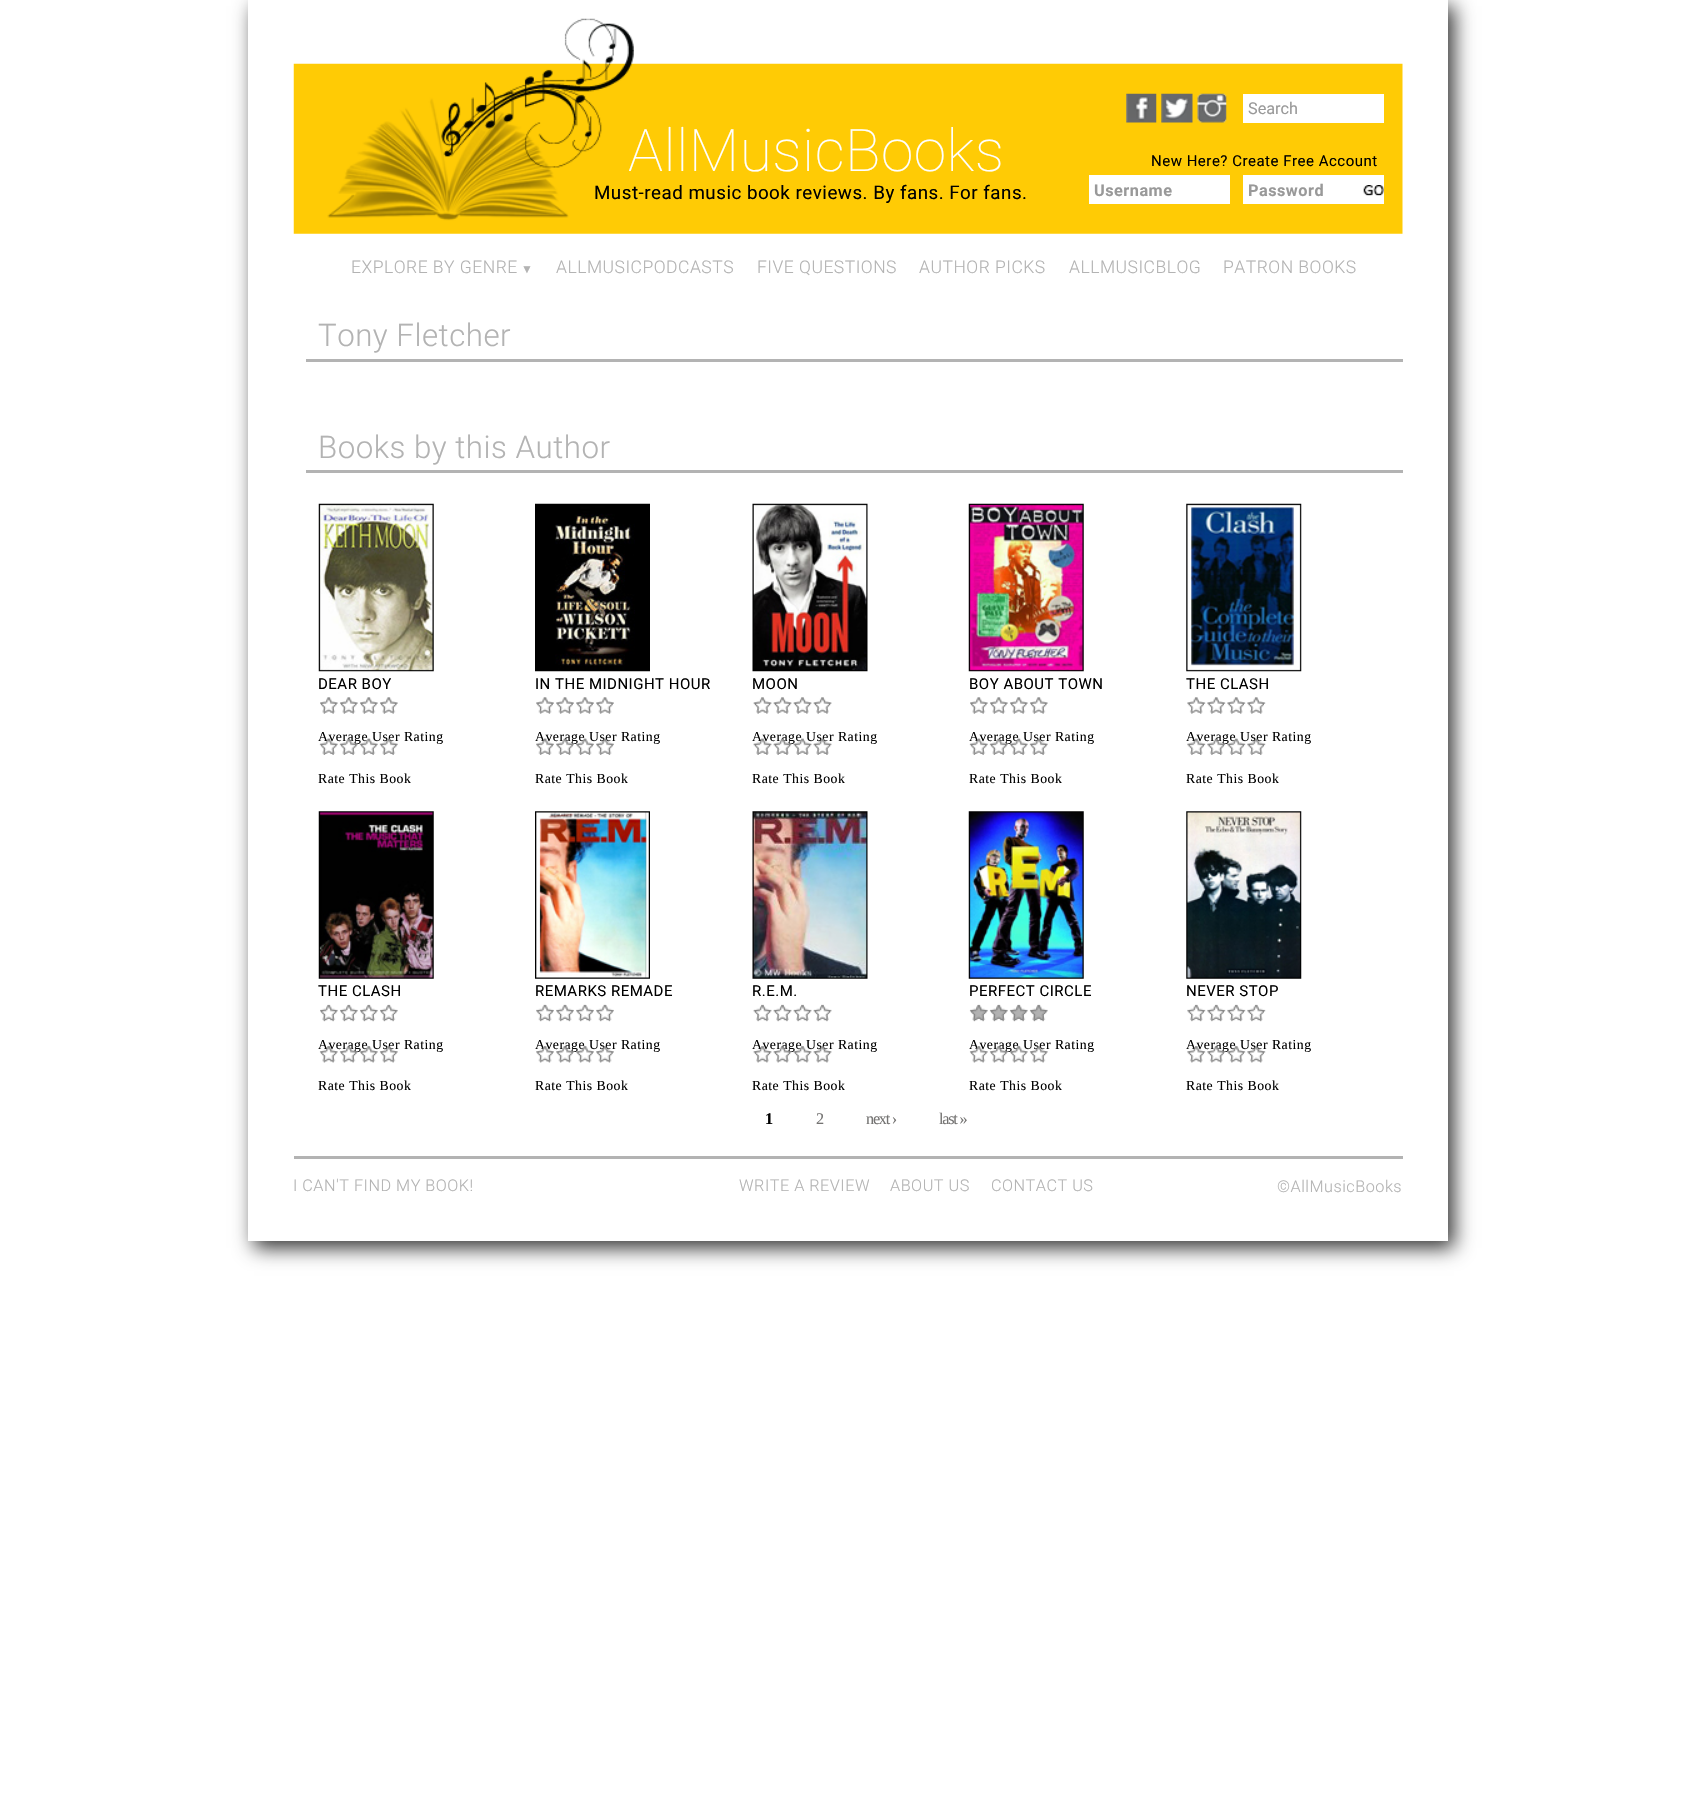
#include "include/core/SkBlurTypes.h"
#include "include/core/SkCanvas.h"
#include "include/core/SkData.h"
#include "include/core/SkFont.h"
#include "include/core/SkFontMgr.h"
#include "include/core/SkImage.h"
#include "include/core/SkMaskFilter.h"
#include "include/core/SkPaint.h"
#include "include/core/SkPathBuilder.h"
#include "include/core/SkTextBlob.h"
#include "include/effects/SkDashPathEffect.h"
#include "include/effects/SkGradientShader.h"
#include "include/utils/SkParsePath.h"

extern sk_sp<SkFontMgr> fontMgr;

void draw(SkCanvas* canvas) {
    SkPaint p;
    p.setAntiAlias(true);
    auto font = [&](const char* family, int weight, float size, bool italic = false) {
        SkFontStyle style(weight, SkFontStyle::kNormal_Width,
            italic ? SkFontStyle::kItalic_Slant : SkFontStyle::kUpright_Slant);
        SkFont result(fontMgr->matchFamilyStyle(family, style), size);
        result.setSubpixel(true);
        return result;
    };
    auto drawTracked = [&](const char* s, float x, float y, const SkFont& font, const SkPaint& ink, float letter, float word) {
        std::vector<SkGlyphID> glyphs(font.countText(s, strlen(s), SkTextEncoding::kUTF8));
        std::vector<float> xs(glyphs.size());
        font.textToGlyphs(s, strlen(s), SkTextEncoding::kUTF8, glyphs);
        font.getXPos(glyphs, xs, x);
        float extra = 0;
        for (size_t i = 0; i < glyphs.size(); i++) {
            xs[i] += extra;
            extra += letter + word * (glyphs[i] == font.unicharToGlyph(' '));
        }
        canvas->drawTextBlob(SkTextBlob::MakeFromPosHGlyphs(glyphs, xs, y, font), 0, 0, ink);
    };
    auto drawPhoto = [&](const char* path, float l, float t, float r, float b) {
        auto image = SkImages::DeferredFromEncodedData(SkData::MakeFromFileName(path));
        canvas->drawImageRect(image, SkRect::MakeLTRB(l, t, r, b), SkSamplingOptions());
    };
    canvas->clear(0xFFFFFFFF);
    p.setColor(0xFF333333);
    p.setMaskFilter(SkMaskFilter::MakeBlur(kNormal_SkBlurStyle, 9.5f));
    canvas->drawRect(SkRect::MakeLTRB(254, 6, 1454, 1248), p);
    p.setMaskFilter(nullptr);
    p.setColor(0xFFFFFFFF);
    canvas->drawRect(SkRect::MakeLTRB(248, 0, 1448, 1241), p);
    drawPhoto("media/1.png", 293, 18, 1403, 234);
    auto font1 = font("Roboto", 100, 58.75f);
    drawTracked("AllMusicBooks", 628, 171, font1, p, 0.5f, 0);
    auto font2 = font("Roboto", 400, 18.75f);
    p.setColor(0xFF000000);
    drawTracked("Must-read music book reviews. By fans. For fans.", 594, 199, font2, p, 0.5f, 0);
    drawPhoto("media/2.png", 1126, 93, 1157, 123);
    drawPhoto("media/3.png", 1161, 93, 1193, 123);
    drawPhoto("media/4.png", 1197, 93, 1227, 123);
    p.setColor(0xFFFFFFFF);
    canvas->drawRect(SkRect::MakeLTRB(1243, 94, 1384, 123), p);
    auto font3 = font("Roboto", 400, 16.25f);
    p.setColor(0xFF999999);
    canvas->drawString("Search", 1248, 114, font3, p);
    auto font4 = font("Roboto", 400, 15);
    p.setColor(0xFF000000);
    drawTracked("New Here? Create Free Account", 1151, 166, font4, p, 0.5f, 0);
    p.setColor(0xFFFFFFFF);
    canvas->drawRect(SkRect::MakeLTRB(1089, 175, 1230, 204), p);
    auto font5 = font("Roboto", 700, 16.25f);
    p.setColor(0xFF999999);
    drawTracked("Username", 1094, 196, font5, p, 0.5f, 0);
    p.setColor(0xFFFFFFFF);
    canvas->drawRect(SkRect::MakeLTRB(1243, 175, 1384, 204), p);
    p.setColor(0xFF999999);
    drawTracked("Password", 1248, 196, font5, p, 0.5f, 0);
    drawPhoto("media/5.png", 1363, 185, 1384, 196);
    auto font6 = font("Roboto", 300, 17.5f);
    p.setColor(0xFFB3B3B3);
    drawTracked("EXPLORE BY GENRE", 351, 273, font6, p, 0.5f, 0);
    auto font7 = font("Liberation Sans", 400, 12);
    drawTracked("▼", 521, 273, font7, p, 0.5f, 0);
    {
        const struct { const char* s; float x, y; } items[] = {
            {"ALLMUSICPODCASTS", 556, 273},
            {"FIVE QUESTIONS", 757, 273},
            {"AUTHOR PICKS", 919, 273},
            {"ALLMUSICBLOG", 1069, 273},
            {"PATRON BOOKS", 1223, 273},
        };
        for (auto [s, x, y] : items) {
            drawTracked(s, x, y, font6, p, 0.5f, 0);
        }
    }
    canvas->drawRect(SkRect::MakeLTRB(306, 359, 1403, 362), p);
    auto font8 = font("Roboto", 300, 31.25f);
    drawTracked("Tony Fletcher", 318, 346, font8, p, 0.5f, 0);
    canvas->drawRect(SkRect::MakeLTRB(306, 470, 1403, 473), p);
    drawTracked("Books by this Author", 318, 458, font8, p, 0.5f, 0);
    drawPhoto("media/6.png", 318, 503, 434, 672);
    p.setColor(0xFF000000);
    drawTracked("DEAR BOY", 318, 689, font4, p, 0.5f, 0);
    drawPhoto("media/7.png", 320, 697, 338, 714);
    drawPhoto("media/8.png", 320, 697, 338, 714);
    drawPhoto("media/9.png", 340, 697, 358, 714);
    drawPhoto("media/10.png", 340, 697, 358, 714);
    drawPhoto("media/9.png", 360, 697, 378, 714);
    drawPhoto("media/10.png", 360, 697, 378, 714);
    drawPhoto("media/9.png", 380, 697, 398, 714);
    drawPhoto("media/10.png", 380, 697, 398, 714);
    auto font9 = font("Liberation Serif", 400, 13.75f);
    drawTracked("Average User Rating", 318, 741, font9, p, 0.5f, 0);
    drawPhoto("media/11.png", 319, 738, 338, 755);
    drawPhoto("media/12.png", 319, 738, 338, 755);
    drawPhoto("media/13.png", 339, 738, 358, 755);
    drawPhoto("media/14.png", 339, 738, 358, 755);
    drawPhoto("media/15.png", 359, 738, 378, 755);
    drawPhoto("media/16.png", 359, 738, 378, 755);
    drawPhoto("media/17.png", 379, 738, 398, 755);
    drawPhoto("media/18.png", 379, 738, 398, 755);
    drawTracked("Rate This Book", 318, 783, font9, p, 0.5f, 0);
    drawPhoto("media/19.png", 535, 503, 650, 672);
    drawTracked("IN THE MIDNIGHT HOUR", 535, 689, font4, p, 0.5f, 0);
    drawPhoto("media/20.png", 536, 697, 554, 714);
    drawPhoto("media/21.png", 536, 697, 554, 714);
    drawPhoto("media/20.png", 556, 697, 574, 714);
    drawPhoto("media/21.png", 556, 697, 574, 714);
    drawPhoto("media/20.png", 576, 697, 594, 714);
    drawPhoto("media/21.png", 576, 697, 594, 714);
    drawPhoto("media/22.png", 596, 697, 614, 714);
    drawPhoto("media/23.png", 596, 697, 614, 714);
    drawTracked("Average User Rating", 535, 741, font9, p, 0.5f, 0);
    drawPhoto("media/24.png", 536, 738, 554, 755);
    drawPhoto("media/25.png", 536, 738, 554, 755);
    drawPhoto("media/26.png", 556, 738, 574, 755);
    drawPhoto("media/27.png", 556, 738, 574, 755);
    drawPhoto("media/28.png", 576, 738, 594, 755);
    drawPhoto("media/29.png", 576, 738, 594, 755);
    drawPhoto("media/30.png", 596, 738, 614, 755);
    drawPhoto("media/31.png", 596, 738, 614, 755);
    drawTracked("Rate This Book", 535, 783, font9, p, 0.5f, 0);
    drawPhoto("media/32.png", 752, 503, 868, 672);
    drawTracked("MOON", 752, 689, font4, p, 0.5f, 0);
    drawPhoto("media/33.png", 753, 697, 772, 714);
    drawPhoto("media/34.png", 753, 697, 772, 714);
    drawPhoto("media/35.png", 773, 697, 792, 714);
    drawPhoto("media/36.png", 773, 697, 792, 714);
    drawPhoto("media/33.png", 793, 697, 812, 714);
    drawPhoto("media/34.png", 793, 697, 812, 714);
    drawPhoto("media/35.png", 813, 697, 832, 714);
    drawPhoto("media/36.png", 813, 697, 832, 714);
    drawTracked("Average User Rating", 752, 741, font9, p, 0.5f, 0);
    drawPhoto("media/37.png", 753, 738, 772, 755);
    drawPhoto("media/38.png", 753, 738, 772, 755);
    drawPhoto("media/39.png", 773, 738, 792, 755);
    drawPhoto("media/40.png", 773, 738, 792, 755);
    drawPhoto("media/41.png", 793, 738, 812, 755);
    drawPhoto("media/42.png", 793, 738, 812, 755);
    drawPhoto("media/43.png", 813, 738, 832, 755);
    drawPhoto("media/44.png", 813, 738, 832, 755);
    drawTracked("Rate This Book", 752, 783, font9, p, 0.5f, 0);
    drawPhoto("media/45.png", 968, 503, 1084, 672);
    drawTracked("BOY ABOUT TOWN", 969, 689, font4, p, 0.5f, 0);
    drawPhoto("media/9.png", 970, 697, 988, 714);
    drawPhoto("media/10.png", 970, 697, 988, 714);
    drawPhoto("media/9.png", 990, 697, 1008, 714);
    drawPhoto("media/10.png", 990, 697, 1008, 714);
    drawPhoto("media/46.png", 1010, 697, 1028, 714);
    drawPhoto("media/47.png", 1010, 697, 1028, 714);
    drawPhoto("media/7.png", 1030, 697, 1048, 714);
    drawPhoto("media/8.png", 1030, 697, 1048, 714);
    drawTracked("Average User Rating", 969, 741, font9, p, 0.5f, 0);
    drawPhoto("media/48.png", 969, 738, 988, 755);
    drawPhoto("media/49.png", 969, 738, 988, 755);
    drawPhoto("media/50.png", 989, 738, 1008, 755);
    drawPhoto("media/51.png", 989, 738, 1008, 755);
    drawPhoto("media/52.png", 1009, 738, 1028, 755);
    drawPhoto("media/53.png", 1009, 738, 1028, 755);
    drawPhoto("media/54.png", 1029, 738, 1048, 755);
    drawPhoto("media/55.png", 1029, 738, 1048, 755);
    drawTracked("Rate This Book", 969, 783, font9, p, 0.5f, 0);
    drawPhoto("media/56.png", 1186, 503, 1302, 672);
    drawTracked("THE CLASH", 1186, 689, font4, p, 0.5f, 0);
    drawPhoto("media/57.png", 1187, 697, 1206, 714);
    drawPhoto("media/58.png", 1187, 697, 1206, 714);
    drawPhoto("media/57.png", 1207, 697, 1226, 714);
    drawPhoto("media/58.png", 1207, 697, 1226, 714);
    drawPhoto("media/57.png", 1227, 697, 1246, 714);
    drawPhoto("media/58.png", 1227, 697, 1246, 714);
    drawPhoto("media/57.png", 1247, 697, 1266, 714);
    drawPhoto("media/58.png", 1247, 697, 1266, 714);
    drawTracked("Average User Rating", 1186, 741, font9, p, 0.5f, 0);
    drawPhoto("media/59.png", 1187, 738, 1206, 755);
    drawPhoto("media/60.png", 1187, 738, 1206, 755);
    drawPhoto("media/61.png", 1207, 738, 1226, 755);
    drawPhoto("media/62.png", 1207, 738, 1226, 755);
    drawPhoto("media/63.png", 1227, 738, 1246, 755);
    drawPhoto("media/64.png", 1227, 738, 1246, 755);
    drawPhoto("media/65.png", 1247, 738, 1266, 755);
    drawPhoto("media/66.png", 1247, 738, 1266, 755);
    drawTracked("Rate This Book", 1186, 783, font9, p, 0.5f, 0);
    drawPhoto("media/67.png", 318, 811, 434, 979);
    drawTracked("THE CLASH", 318, 996, font4, p, 0.5f, 0);
    drawPhoto("media/68.png", 320, 1004, 338, 1022);
    drawPhoto("media/69.png", 320, 1004, 338, 1021);
    drawPhoto("media/70.png", 340, 1004, 358, 1022);
    drawPhoto("media/71.png", 340, 1004, 358, 1021);
    drawPhoto("media/70.png", 360, 1004, 378, 1022);
    drawPhoto("media/71.png", 360, 1004, 378, 1021);
    drawPhoto("media/70.png", 380, 1004, 398, 1022);
    drawPhoto("media/71.png", 380, 1004, 398, 1021);
    drawTracked("Average User Rating", 318, 1049, font9, p, 0.5f, 0);
    drawPhoto("media/72.png", 319, 1046, 338, 1063);
    drawPhoto("media/73.png", 320, 1046, 338, 1063);
    drawPhoto("media/74.png", 339, 1046, 358, 1063);
    drawPhoto("media/75.png", 340, 1046, 358, 1063);
    drawPhoto("media/76.png", 360, 1046, 378, 1063);
    drawPhoto("media/77.png", 360, 1046, 378, 1063);
    drawPhoto("media/78.png", 379, 1046, 398, 1063);
    drawPhoto("media/79.png", 380, 1046, 398, 1063);
    drawTracked("Rate This Book", 318, 1090, font9, p, 0.5f, 0);
    drawPhoto("media/80.png", 535, 811, 650, 979);
    drawTracked("REMARKS REMADE", 535, 996, font4, p, 0.5f, 0);
    drawPhoto("media/81.png", 536, 1004, 554, 1022);
    drawPhoto("media/82.png", 536, 1004, 554, 1021);
    drawPhoto("media/81.png", 556, 1004, 574, 1022);
    drawPhoto("media/82.png", 556, 1004, 574, 1021);
    drawPhoto("media/81.png", 576, 1004, 594, 1022);
    drawPhoto("media/82.png", 576, 1004, 594, 1021);
    drawPhoto("media/83.png", 596, 1004, 614, 1022);
    drawPhoto("media/84.png", 596, 1004, 614, 1021);
    drawTracked("Average User Rating", 535, 1049, font9, p, 0.5f, 0);
    drawPhoto("media/85.png", 536, 1046, 554, 1063);
    drawPhoto("media/86.png", 536, 1046, 554, 1063);
    drawPhoto("media/87.png", 556, 1046, 574, 1063);
    drawPhoto("media/88.png", 556, 1046, 574, 1063);
    drawPhoto("media/89.png", 576, 1046, 594, 1063);
    drawPhoto("media/90.png", 576, 1046, 594, 1063);
    drawPhoto("media/91.png", 596, 1046, 614, 1063);
    drawPhoto("media/92.png", 596, 1046, 614, 1063);
    drawTracked("Rate This Book", 535, 1090, font9, p, 0.5f, 0);
    drawPhoto("media/93.png", 752, 811, 868, 979);
    drawTracked("R.E.M.", 752, 996, font4, p, 0.5f, 0);
    drawPhoto("media/94.png", 753, 1004, 772, 1022);
    drawPhoto("media/95.png", 753, 1004, 772, 1021);
    drawPhoto("media/96.png", 773, 1004, 792, 1022);
    drawPhoto("media/97.png", 773, 1004, 792, 1021);
    drawPhoto("media/94.png", 793, 1004, 812, 1022);
    drawPhoto("media/95.png", 793, 1004, 812, 1021);
    drawPhoto("media/96.png", 813, 1004, 832, 1022);
    drawPhoto("media/97.png", 813, 1004, 832, 1021);
    drawTracked("Average User Rating", 752, 1049, font9, p, 0.5f, 0);
    drawPhoto("media/98.png", 753, 1046, 772, 1063);
    drawPhoto("media/99.png", 753, 1046, 772, 1063);
    drawPhoto("media/100.png", 773, 1046, 792, 1063);
    drawPhoto("media/101.png", 773, 1046, 792, 1063);
    drawPhoto("media/102.png", 793, 1046, 812, 1063);
    drawPhoto("media/103.png", 793, 1046, 812, 1063);
    drawPhoto("media/104.png", 813, 1046, 832, 1063);
    drawPhoto("media/105.png", 813, 1046, 832, 1063);
    drawTracked("Rate This Book", 752, 1090, font9, p, 0.5f, 0);
    drawPhoto("media/106.png", 968, 811, 1084, 979);
    drawTracked("PERFECT CIRCLE", 969, 996, font4, p, 0.5f, 0);
    drawPhoto("media/70.png", 970, 1004, 988, 1022);
    drawPhoto("media/107.png", 969, 1004, 988, 1021);
    drawPhoto("media/70.png", 990, 1004, 1008, 1022);
    drawPhoto("media/107.png", 989, 1004, 1008, 1021);
    drawPhoto("media/108.png", 1010, 1004, 1028, 1022);
    drawPhoto("media/109.png", 1009, 1004, 1028, 1021);
    drawPhoto("media/68.png", 1030, 1004, 1048, 1022);
    drawPhoto("media/110.png", 1029, 1004, 1048, 1021);
    drawTracked("Average User Rating", 969, 1049, font9, p, 0.5f, 0);
    drawPhoto("media/111.png", 969, 1046, 988, 1063);
    drawPhoto("media/112.png", 970, 1046, 988, 1063);
    drawPhoto("media/113.png", 989, 1046, 1008, 1063);
    drawPhoto("media/114.png", 990, 1046, 1008, 1063);
    drawPhoto("media/115.png", 1010, 1046, 1028, 1063);
    drawPhoto("media/116.png", 1010, 1046, 1028, 1063);
    drawPhoto("media/117.png", 1029, 1046, 1048, 1063);
    drawPhoto("media/118.png", 1030, 1046, 1048, 1063);
    drawTracked("Rate This Book", 969, 1090, font9, p, 0.5f, 0);
    drawPhoto("media/119.png", 1186, 811, 1302, 979);
    drawTracked("NEVER STOP", 1186, 996, font4, p, 0.5f, 0);
    drawPhoto("media/120.png", 1187, 1004, 1206, 1022);
    drawPhoto("media/121.png", 1187, 1004, 1206, 1021);
    drawPhoto("media/120.png", 1207, 1004, 1226, 1022);
    drawPhoto("media/121.png", 1207, 1004, 1226, 1021);
    drawPhoto("media/120.png", 1227, 1004, 1246, 1022);
    drawPhoto("media/121.png", 1227, 1004, 1246, 1021);
    drawPhoto("media/120.png", 1247, 1004, 1266, 1022);
    drawPhoto("media/121.png", 1247, 1004, 1266, 1021);
    drawTracked("Average User Rating", 1186, 1049, font9, p, 0.5f, 0);
    drawPhoto("media/122.png", 1187, 1046, 1206, 1063);
    drawPhoto("media/123.png", 1187, 1046, 1206, 1063);
    drawPhoto("media/124.png", 1207, 1046, 1226, 1063);
    drawPhoto("media/125.png", 1207, 1046, 1226, 1063);
    drawPhoto("media/126.png", 1227, 1046, 1246, 1063);
    drawPhoto("media/127.png", 1227, 1046, 1246, 1063);
    drawPhoto("media/128.png", 1247, 1046, 1266, 1063);
    drawPhoto("media/129.png", 1247, 1046, 1266, 1063);
    drawTracked("Rate This Book", 1186, 1090, font9, p, 0.5f, 0);
    auto font10 = font("Liberation Serif", 700, 16.25f);
    drawTracked("1", 765, 1124, font10, p, -1.25f, 0);
    auto font11 = font("Liberation Serif", 400, 16.25f);
    p.setColor(0xFF747372);
    {
        const struct { const char* s; float x, y; } items[] = {
            {"2", 816, 1124},
            {"next ›", 866, 1124},
            {"last »", 939, 1124},
        };
        for (auto [s, x, y] : items) {
            drawTracked(s, x, y, font11, p, -1.25f, 0);
        }
    }
    p.setColor(0xFFB3B3B3);
    canvas->drawRect(SkRect::MakeLTRB(294, 1156, 1403, 1159), p);
    auto font12 = font("Roboto", 300, 16.25f);
    {
        const struct { const char* s; float x, y; } items[] = {
            {"I CAN'T FIND MY BOOK!", 293, 1191},
            {"WRITE A REVIEW", 739, 1191},
            {"ABOUT US", 890, 1191},
            {"CONTACT US", 991, 1191},
            {"©AllMusicBooks", 1277, 1192},
        };
        for (auto [s, x, y] : items) {
            drawTracked(s, x, y, font12, p, 0.5f, 0);
        }
    }
}
